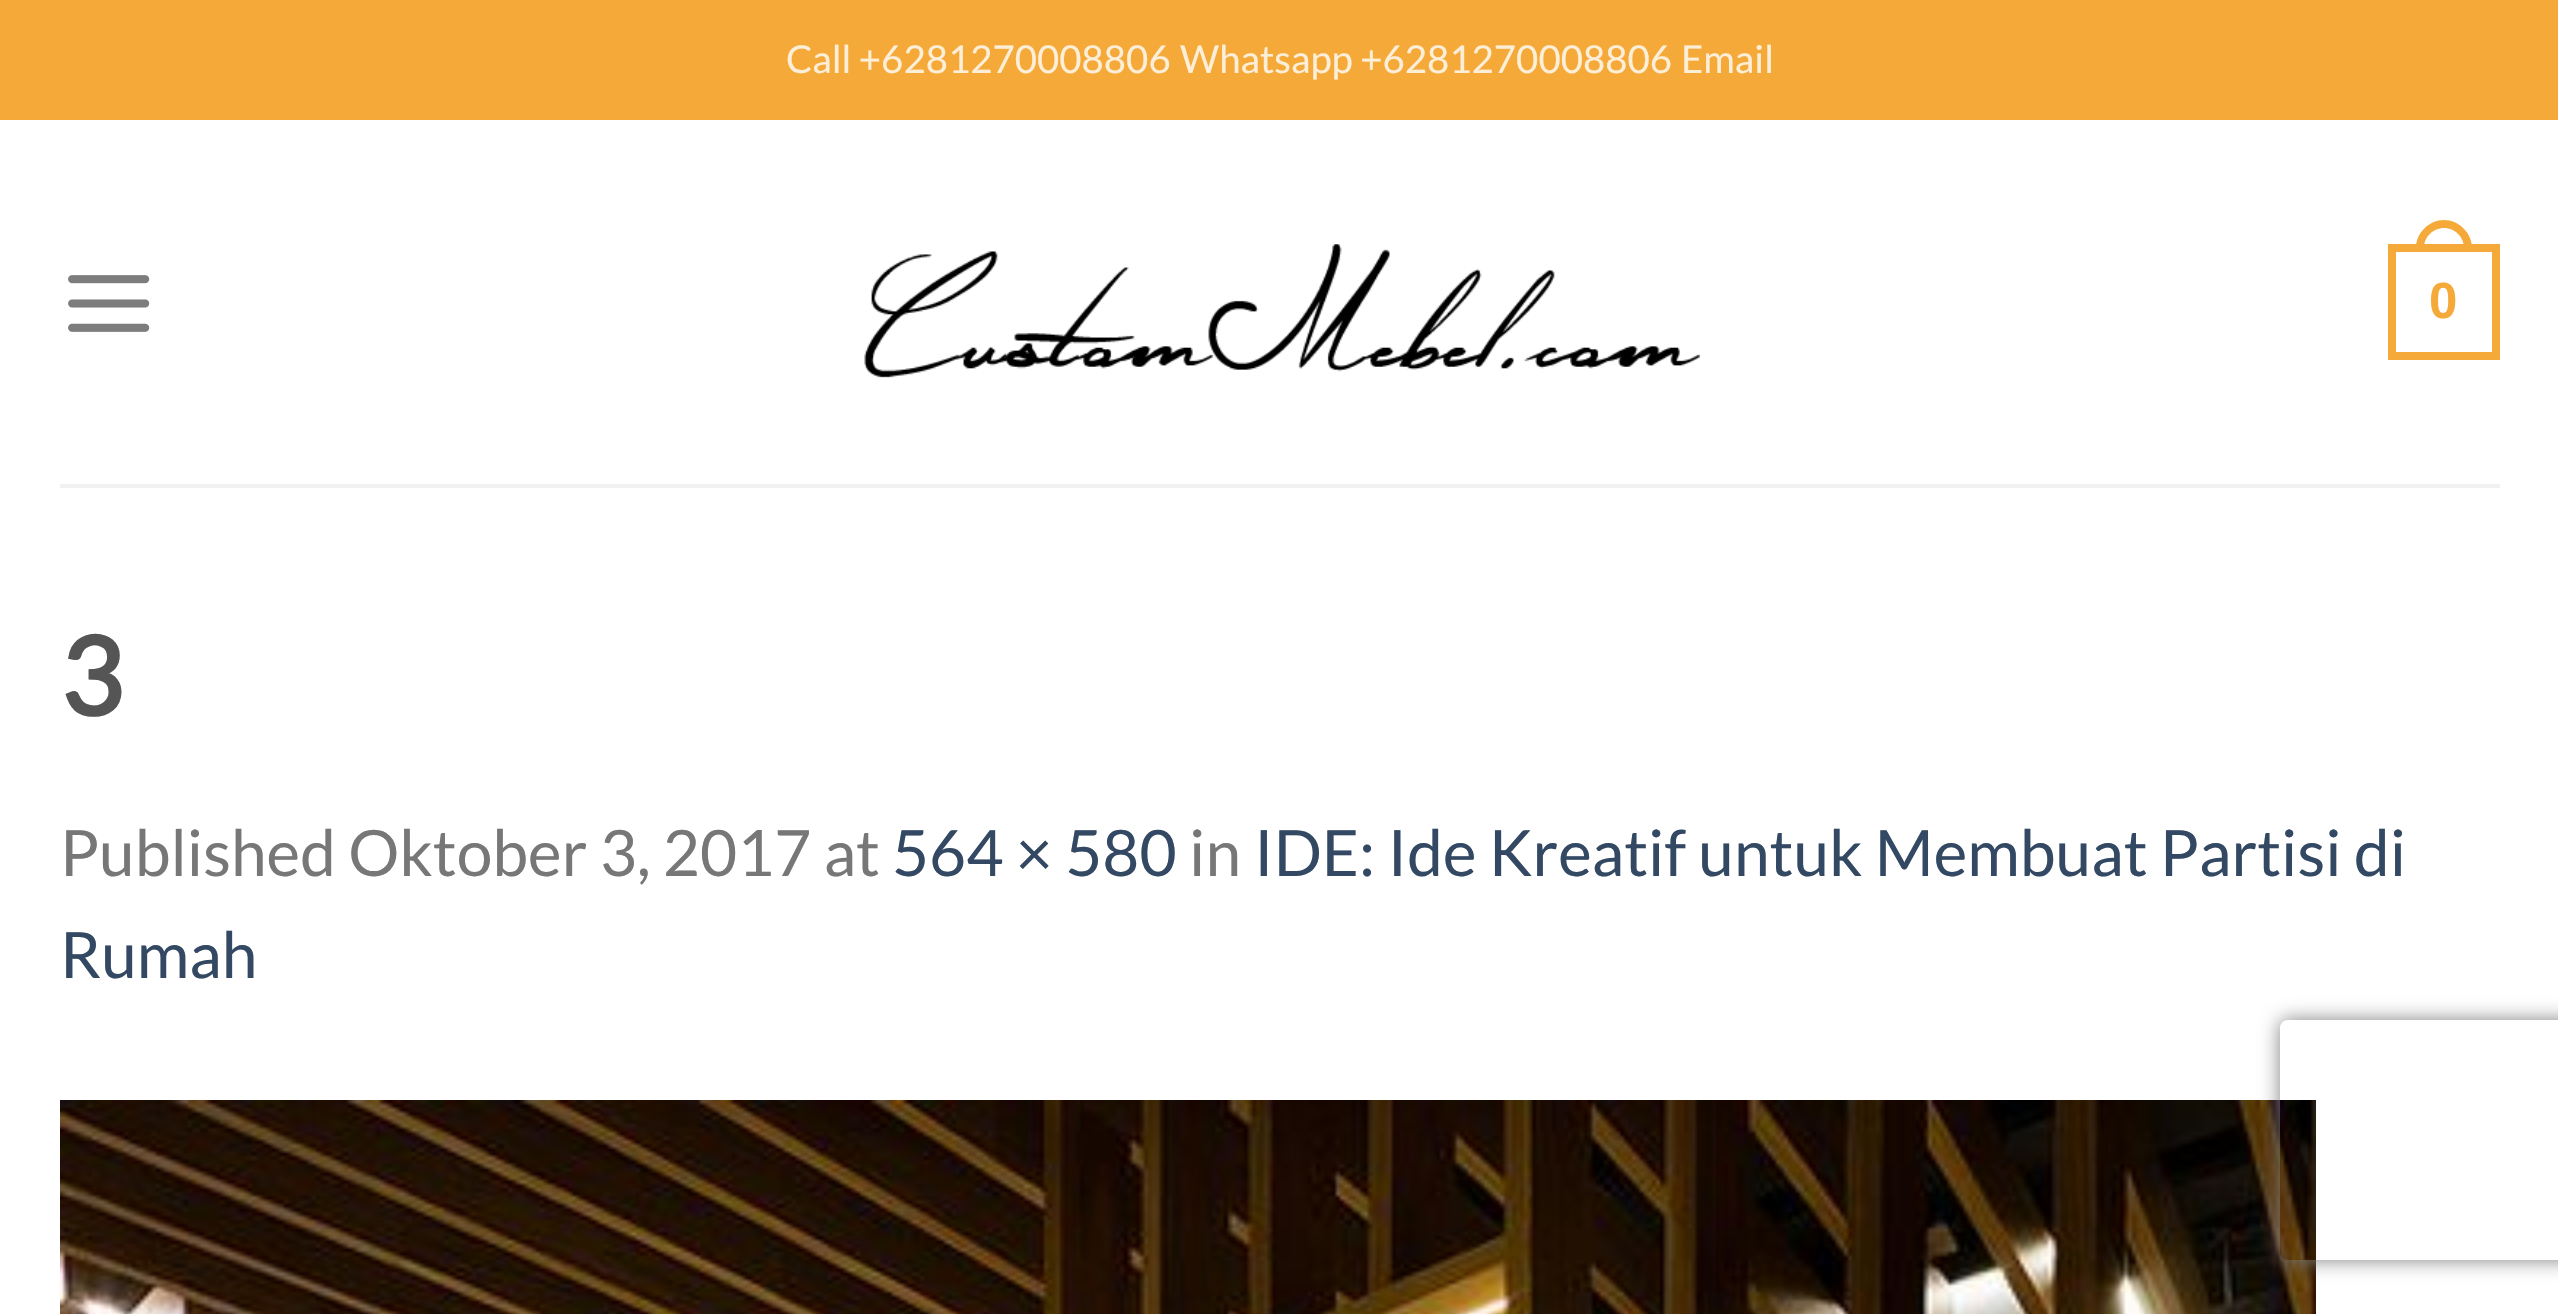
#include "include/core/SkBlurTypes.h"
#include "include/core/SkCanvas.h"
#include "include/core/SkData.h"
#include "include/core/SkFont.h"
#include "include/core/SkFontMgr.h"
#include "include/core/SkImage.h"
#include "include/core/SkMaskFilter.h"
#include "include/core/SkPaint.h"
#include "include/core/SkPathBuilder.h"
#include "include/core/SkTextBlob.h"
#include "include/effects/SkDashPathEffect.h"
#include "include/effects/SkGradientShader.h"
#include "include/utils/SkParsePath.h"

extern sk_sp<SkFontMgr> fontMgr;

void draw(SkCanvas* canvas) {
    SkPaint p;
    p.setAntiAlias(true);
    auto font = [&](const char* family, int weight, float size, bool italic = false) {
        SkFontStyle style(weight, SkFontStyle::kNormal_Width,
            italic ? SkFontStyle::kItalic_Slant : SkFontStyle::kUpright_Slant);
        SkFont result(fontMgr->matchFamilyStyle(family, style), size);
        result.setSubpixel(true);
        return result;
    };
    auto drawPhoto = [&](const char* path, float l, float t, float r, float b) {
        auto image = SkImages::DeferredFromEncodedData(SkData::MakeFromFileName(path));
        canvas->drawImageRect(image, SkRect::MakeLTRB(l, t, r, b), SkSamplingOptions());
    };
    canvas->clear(0xFFFFFFFF);
    p.setColor(0xFFF4A938);
    canvas->drawRect(SkRect::MakeLTRB(0, 0, 2558, 120), p);
    auto font1 = font("Lato", 400, 38.4f);
    p.setColor(0xFFFDEED7);
    {
        const struct { const char* s; float x, y; } items[] = {
            {"Call +6281270008806", 786, 73},
            {"Whatsapp +6281270008806", 1180, 73},
            {"Email", 1681, 73},
        };
        for (auto [s, x, y] : items) {
            canvas->drawString(s, x, y, font1, p);
        }
    }
    drawPhoto("media/1.png", 68, 275, 150, 332);
    drawPhoto("media/2.png", 864, 244, 1700, 378);
    p.setStyle(SkPaint::kStroke_Style);
    p.setStrokeWidth(8);
    p.setColor(0xFFF4A938);
    canvas->drawRect(SkRect::MakeLTRB(2392, 248, 2496, 356), p);
    p.setStyle(SkPaint::kFill_Style);
    canvas->drawPath(SkPathBuilder(SkPathFillType::kEvenOdd).moveTo(2444, 220).cubicTo(2459, 220, 2472, 233, 2472, 248).lineTo(2472, 252).lineTo(2416, 252).lineTo(2416, 248).cubicTo(2416, 233, 2429, 220, 2444, 220).close().moveTo(2444, 228).cubicTo(2455, 228, 2464, 237, 2464, 248).lineTo(2464, 252).lineTo(2424, 252).lineTo(2424, 248).cubicTo(2424, 237, 2433, 228, 2444, 228).close().detach(), p);
    auto font2 = font("Liberation Sans", 700, 51);
    canvas->drawString("0", 2429, 318, font2, p);
    p.setColor(0xFFF1F1F1);
    canvas->drawRect(SkRect::MakeLTRB(60, 484, 2500, 488), p);
    auto font3 = font("Lato", 700, 109);
    p.setColor(0xFF555555);
    canvas->drawString("3", 60, 716, font3, p);
    auto font4 = font("Lato", 400, 64);
    p.setColor(0xFF777777);
    canvas->drawString("Published Oktober 3, 2017 at", 60, 876, font4, p);
    p.setColor(0xFF334862);
    canvas->drawString("564 × 580", 892, 876, font4, p);
    p.setColor(0xFF777777);
    canvas->drawString("in", 1189, 876, font4, p);
    p.setColor(0xFF334862);
    canvas->drawString("IDE: Ide Kreatif untuk Membuat Partisi di", 1254, 876, font4, p);
    canvas->drawString("Rumah", 60, 978, font4, p);
    drawPhoto("media/3.png", 60, 1100, 2316, 1314);
    canvas->save();
    canvas->clipPath(SkPathBuilder(SkPathFillType::kEvenOdd).moveTo(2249, 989).lineTo(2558, 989).lineTo(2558, 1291).lineTo(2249, 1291).close().moveTo(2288, 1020).lineTo(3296, 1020).cubicTo(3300.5f, 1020, 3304, 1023.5f, 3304, 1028).lineTo(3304, 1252).cubicTo(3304, 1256.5f, 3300.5f, 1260, 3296, 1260).lineTo(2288, 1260).cubicTo(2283.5f, 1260, 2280, 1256.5f, 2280, 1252).lineTo(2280, 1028).cubicTo(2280, 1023.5f, 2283.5f, 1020, 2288, 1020).close().detach(), true);
    p.setColor(0xFF808080);
    p.setMaskFilter(SkMaskFilter::MakeBlur(kNormal_SkBlurStyle, 10));
    canvas->drawRoundRect(SkRect::MakeLTRB(2280, 1020, 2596, 1260), 8, 8, p);
    p.setMaskFilter(nullptr);
    canvas->restore();
}
